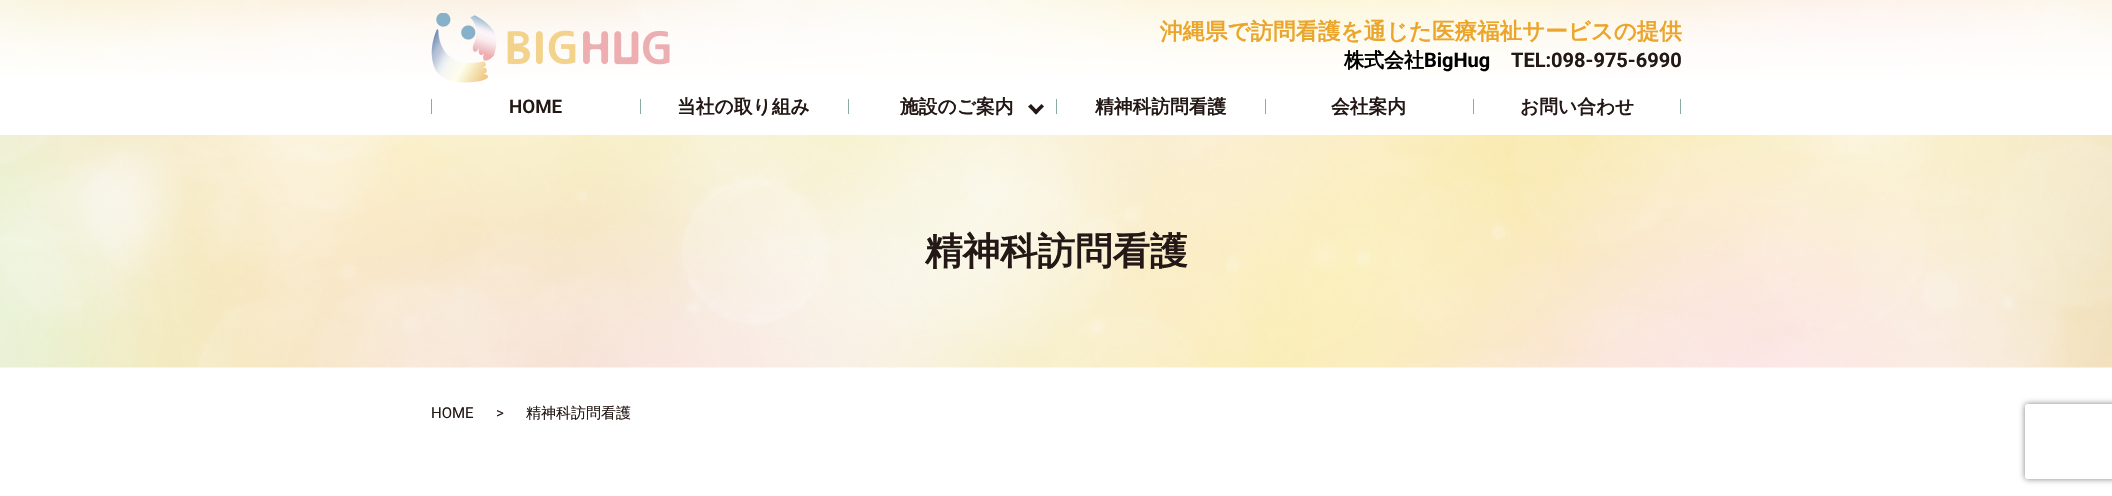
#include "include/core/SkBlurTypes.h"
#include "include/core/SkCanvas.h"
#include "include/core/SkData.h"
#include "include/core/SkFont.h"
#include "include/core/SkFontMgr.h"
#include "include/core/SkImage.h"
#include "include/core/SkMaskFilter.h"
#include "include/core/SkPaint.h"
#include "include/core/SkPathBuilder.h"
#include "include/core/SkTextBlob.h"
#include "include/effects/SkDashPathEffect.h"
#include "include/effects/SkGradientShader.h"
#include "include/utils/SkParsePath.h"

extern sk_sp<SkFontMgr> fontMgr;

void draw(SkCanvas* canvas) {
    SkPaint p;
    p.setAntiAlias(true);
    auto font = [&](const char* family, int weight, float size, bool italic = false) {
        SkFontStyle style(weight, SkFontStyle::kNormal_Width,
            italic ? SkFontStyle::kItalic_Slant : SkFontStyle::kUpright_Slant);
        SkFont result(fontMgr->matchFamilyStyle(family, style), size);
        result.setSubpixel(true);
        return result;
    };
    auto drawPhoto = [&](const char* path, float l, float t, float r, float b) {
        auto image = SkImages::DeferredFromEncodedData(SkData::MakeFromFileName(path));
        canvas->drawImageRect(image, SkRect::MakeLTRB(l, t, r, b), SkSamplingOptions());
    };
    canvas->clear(0xFFFFFFFF);
    drawPhoto("media/1.png", 0, 0, 2112, 77);
    drawPhoto("media/2.png", 431, 13, 670, 83);
    auto font1 = font("WenQuanYi Zen Hei", 700, 22.5f);
    p.setColor(0xFFEBA52A);
    canvas->drawString("沖縄県で訪問看護を通じた医療福祉サービスの提供", 1160, 39, font1, p);
    auto font2 = font("WenQuanYi Zen Hei", 700, 20);
    p.setColor(0xFF000000);
    canvas->drawString("株式会社", 1344, 67, font2, p);
    auto font3 = font("Roboto", 700, 20);
    canvas->drawString("BigHug", 1424, 67, font3, p);
    p.setColor(0xFF231815);
    canvas->drawString("TEL:098-975-6990", 1511, 67, font3, p);
    p.setColor(0xFF86AD9D);
    canvas->drawRect(SkRect::MakeLTRB(431, 99, 432, 114), p);
    auto font4 = font("Roboto", 600, 18.75f);
    p.setColor(0xFF231815);
    canvas->drawString("HOME", 509, 113, font4, p);
    p.setColor(0xFF86AD9D);
    canvas->drawRect(SkRect::MakeLTRB(640, 99, 641, 114), p);
    auto font5 = font("WenQuanYi Zen Hei", 700, 18.75f);
    p.setColor(0xFF231815);
    canvas->drawString("当社の取り組み", 677, 113, font5, p);
    p.setColor(0xFF86AD9D);
    canvas->drawRect(SkRect::MakeLTRB(848, 99, 849, 114), p);
    p.setColor(0xFF231815);
    canvas->drawString("施設のご案内", 900, 113, font5, p);
    canvas->drawPath(SkPathBuilder().moveTo(1044, 106.5f).lineTo(1036, 114.5f).lineTo(1033.5f, 112).lineTo(1041.5f, 104).close().detach(), p);
    canvas->drawPath(SkPathBuilder().moveTo(1038.5f, 112).lineTo(1036, 114.5f).lineTo(1028, 106.5f).lineTo(1031, 104).close().detach(), p);
    p.setColor(0xFF86AD9D);
    canvas->drawRect(SkRect::MakeLTRB(1056, 99, 1057, 114), p);
    p.setColor(0xFF231815);
    canvas->drawString("精神科訪問看護", 1095, 113, font5, p);
    p.setColor(0xFF86AD9D);
    canvas->drawRect(SkRect::MakeLTRB(1265, 99, 1266, 114), p);
    p.setColor(0xFF231815);
    canvas->drawString("会社案内", 1331, 113, font5, p);
    p.setColor(0xFF86AD9D);
    canvas->drawRect(SkRect::MakeLTRB(1473, 99, 1474, 114), p);
    p.setColor(0xFF231815);
    canvas->drawString("お問い合わせ", 1520, 113, font5, p);
    p.setColor(0xFF86AD9D);
    canvas->drawRect(SkRect::MakeLTRB(1680, 99, 1681, 114), p);
    drawPhoto("media/3.png", 0, 135, 2112, 368);
    auto font6 = font("WenQuanYi Zen Hei", 700, 37.5f);
    p.setColor(0xFF231815);
    canvas->drawString("精神科訪問看護", 925, 264, font6, p);
    auto font7 = font("Roboto", 400, 15);
    canvas->drawString("HOME", 431, 418, font7, p);
    canvas->drawString(">", 496, 418, font7, p);
    auto font8 = font("WenQuanYi Zen Hei", 500, 15);
    canvas->drawString("精神科訪問看護", 526, 418, font8, p);
    canvas->save();
    canvas->clipPath(SkPathBuilder(SkPathFillType::kEvenOdd).moveTo(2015, 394).lineTo(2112, 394).lineTo(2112, 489).lineTo(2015, 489).close().moveTo(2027.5f, 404).lineTo(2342.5f, 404).cubicTo(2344, 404, 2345, 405, 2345, 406.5f).lineTo(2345, 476.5f).cubicTo(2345, 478, 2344, 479, 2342.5f, 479).lineTo(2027.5f, 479).cubicTo(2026, 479, 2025, 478, 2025, 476.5f).lineTo(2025, 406.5f).cubicTo(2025, 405, 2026, 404, 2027.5f, 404).close().detach(), true);
    p.setColor(0xFF808080);
    p.setMaskFilter(SkMaskFilter::MakeBlur(kNormal_SkBlurStyle, 3));
    canvas->drawRoundRect(SkRect::MakeLTRB(2025, 404, 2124, 479), 2.5f, 2.5f, p);
    p.setMaskFilter(nullptr);
    canvas->restore();
}
